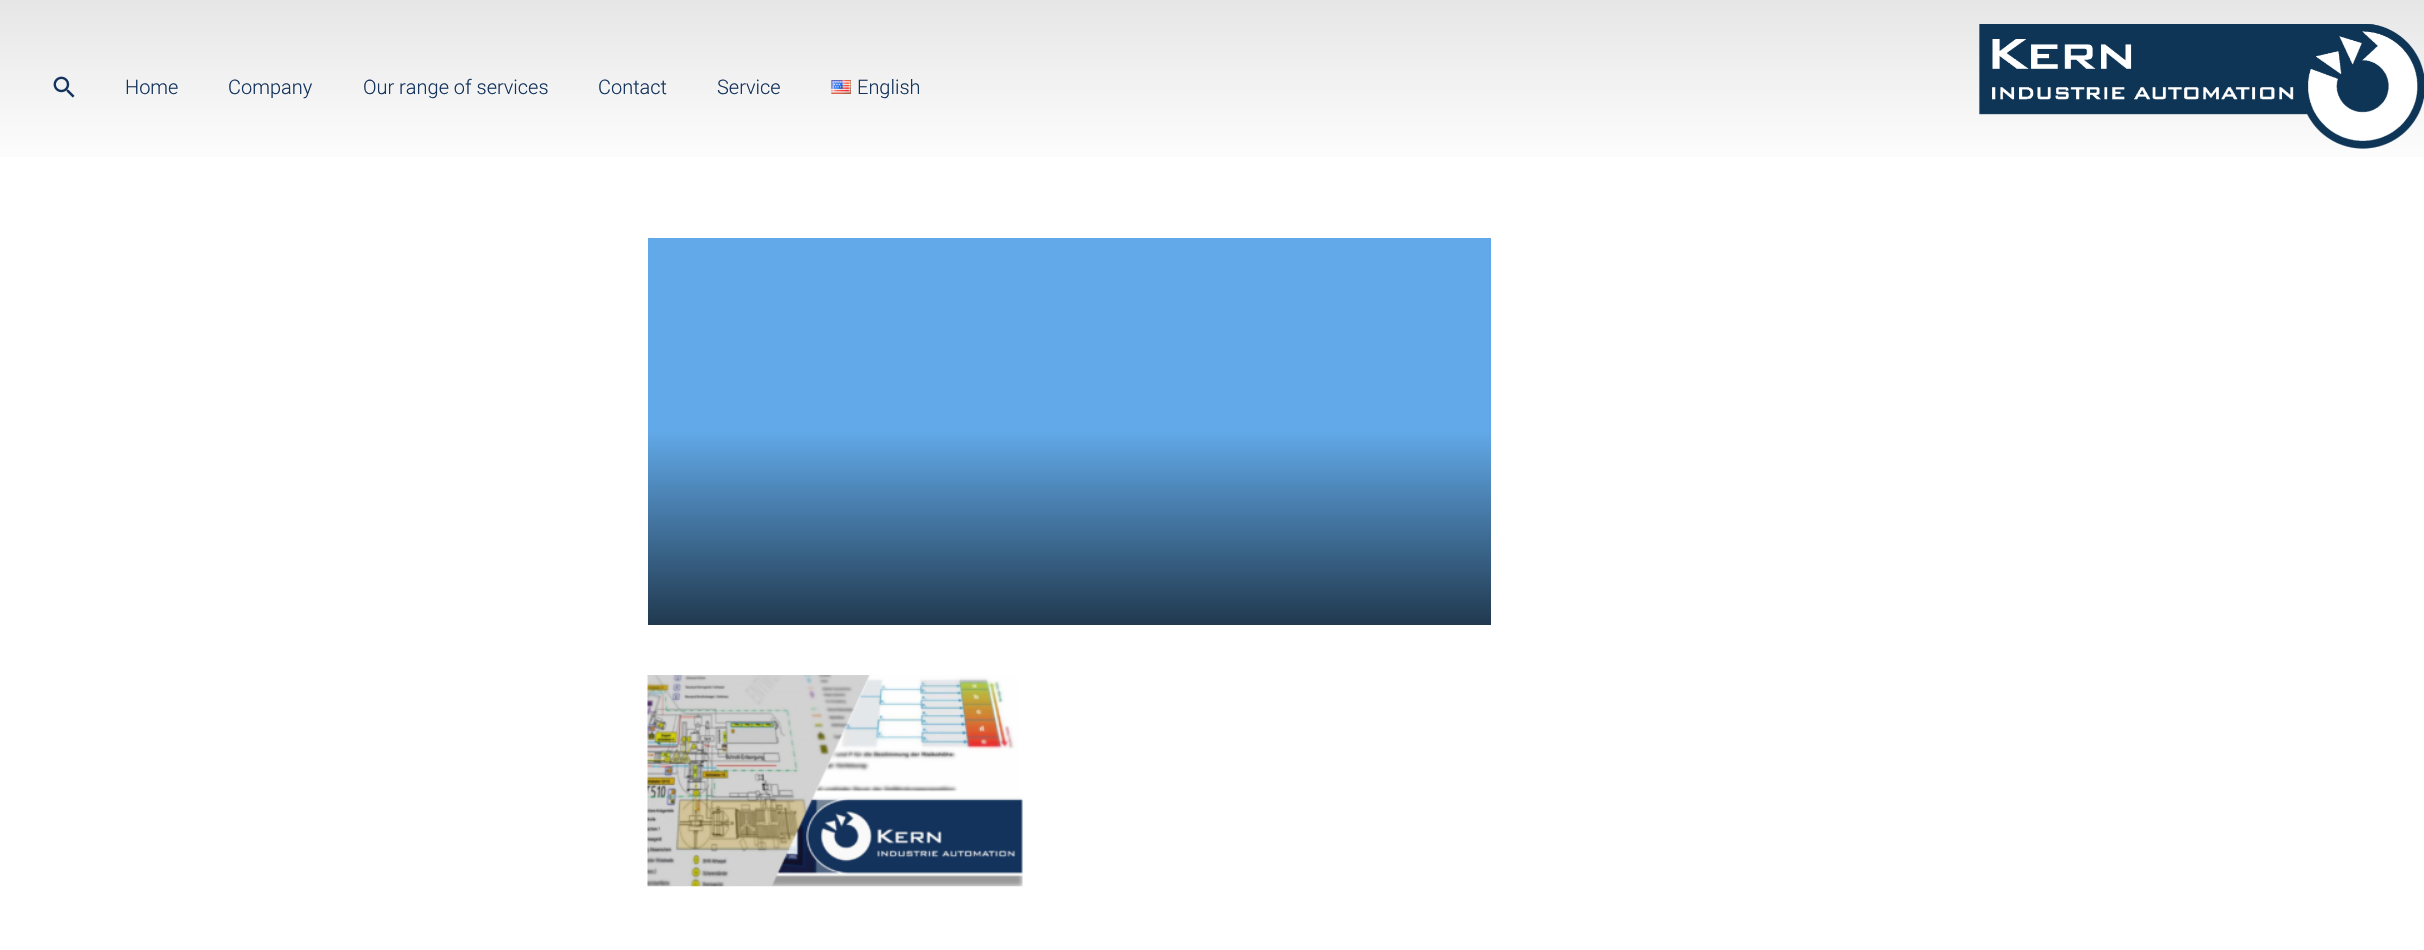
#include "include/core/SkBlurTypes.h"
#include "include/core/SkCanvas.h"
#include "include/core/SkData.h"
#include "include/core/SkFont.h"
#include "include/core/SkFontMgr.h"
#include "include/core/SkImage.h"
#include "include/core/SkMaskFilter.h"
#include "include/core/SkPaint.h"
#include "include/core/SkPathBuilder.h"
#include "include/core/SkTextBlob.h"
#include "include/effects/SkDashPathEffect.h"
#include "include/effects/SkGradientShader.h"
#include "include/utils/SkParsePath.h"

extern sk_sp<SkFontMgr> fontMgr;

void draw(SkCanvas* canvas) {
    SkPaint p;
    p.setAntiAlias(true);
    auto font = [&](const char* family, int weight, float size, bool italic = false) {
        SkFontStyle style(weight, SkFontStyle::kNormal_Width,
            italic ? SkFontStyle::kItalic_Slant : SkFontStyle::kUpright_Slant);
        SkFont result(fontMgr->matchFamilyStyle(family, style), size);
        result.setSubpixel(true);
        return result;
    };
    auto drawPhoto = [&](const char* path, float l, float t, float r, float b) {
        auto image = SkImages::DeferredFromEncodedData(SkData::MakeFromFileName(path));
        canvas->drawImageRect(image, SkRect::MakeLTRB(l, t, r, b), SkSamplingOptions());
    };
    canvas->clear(0xFFFFFFFF);
    {
        const SkColor colors[] = {0xFFFFFFFF, 0xFFE6E6E6};
        const float stops[] = {0, 1};
        const SkPoint ends[] = {{1213, 175}, {1213, 0}};
        p.setShader(SkGradientShader::MakeLinear(ends, colors, stops, 2, SkTileMode::kClamp));
        p.setAlpha(255);
    }
    canvas->drawRect(SkRect::MakeLTRB(0, 0, 2424, 157), p);
    drawPhoto("media/1.png", 53, 76, 75, 98);
    auto font1 = font("Roboto", 300, 20);
    p.setShader(nullptr);
    p.setColor(0xFF13335C);
    {
        const struct { const char* s; float x, y; } items[] = {
            {"Home", 125, 94},
            {"Company", 228, 94},
            {"Our range of services", 363, 94},
            {"Contact", 598, 94},
            {"Service", 717, 94},
        };
        for (auto [s, x, y] : items) {
            canvas->drawString(s, x, y, font1, p);
        }
    }
    drawPhoto("media/2.png", 831, 80, 851, 94);
    canvas->drawString("English", 857, 94, font1, p);
    drawPhoto("media/3.png", 1979, 24, 2424, 149);
    p.setColor(0xFF61A9E8);
    canvas->drawRect(SkRect::MakeLTRB(648, 238, 1491, 431), p);
    {
        const SkColor colors[] = {0xFF21394F, 0xFF61A9E8};
        const float stops[] = {0, 1};
        const SkPoint ends[] = {{1069, 625}, {1069, 431}};
        p.setShader(SkGradientShader::MakeLinear(ends, colors, stops, 2, SkTileMode::kClamp));
        p.setAlpha(255);
    }
    canvas->drawRect(SkRect::MakeLTRB(648, 431, 1491, 625), p);
    drawPhoto("media/4.png", 647, 675, 1023, 887);
}
